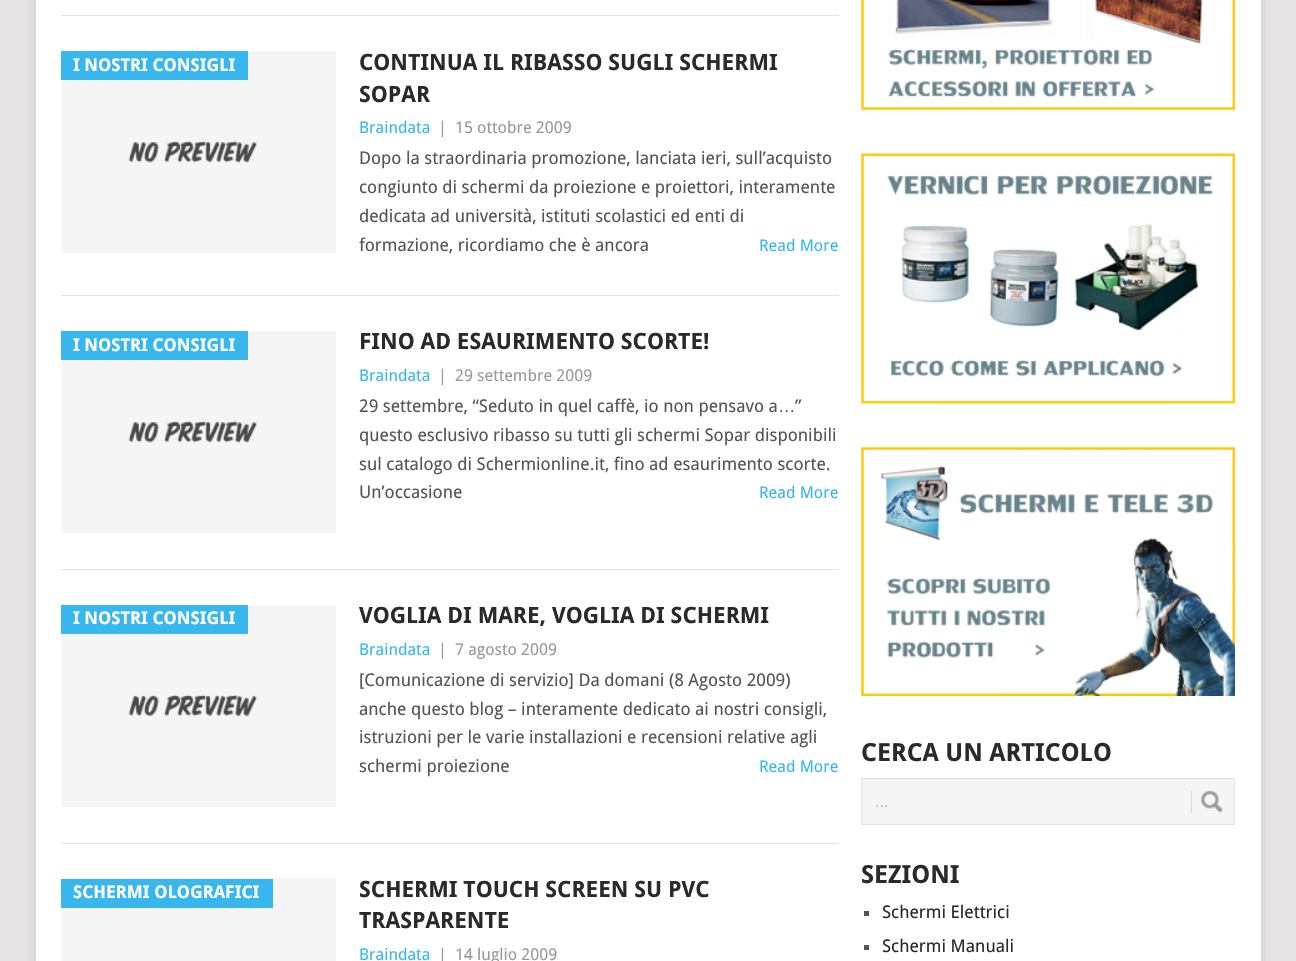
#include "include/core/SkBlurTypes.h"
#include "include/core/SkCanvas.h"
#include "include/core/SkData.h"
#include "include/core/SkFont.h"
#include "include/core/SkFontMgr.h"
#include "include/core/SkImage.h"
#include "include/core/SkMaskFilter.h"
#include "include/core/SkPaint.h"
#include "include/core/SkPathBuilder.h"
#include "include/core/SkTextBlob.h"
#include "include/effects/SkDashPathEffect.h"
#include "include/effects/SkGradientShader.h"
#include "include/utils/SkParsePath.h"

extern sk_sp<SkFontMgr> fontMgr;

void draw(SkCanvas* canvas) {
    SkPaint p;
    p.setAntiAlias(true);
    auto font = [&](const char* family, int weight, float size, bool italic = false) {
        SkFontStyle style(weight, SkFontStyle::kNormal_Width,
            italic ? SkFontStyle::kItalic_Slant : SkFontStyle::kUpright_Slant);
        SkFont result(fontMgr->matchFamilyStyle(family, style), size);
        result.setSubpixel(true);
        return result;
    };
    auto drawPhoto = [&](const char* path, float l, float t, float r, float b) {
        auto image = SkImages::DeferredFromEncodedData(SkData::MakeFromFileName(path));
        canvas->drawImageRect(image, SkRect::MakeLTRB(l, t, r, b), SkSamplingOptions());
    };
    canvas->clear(0xFFE7E5E6);
    p.setColor(0x2B323232);
    p.setMaskFilter(SkMaskFilter::MakeBlur(kNormal_SkBlurStyle, 6));
    canvas->drawRect(SkRect::MakeLTRB(36, -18, 1261, 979), p);
    p.setMaskFilter(nullptr);
    {
        const struct { float l, t, r, b; SkColor color; } items[] = {
            {36, 0, 1261, 961, 0xFFFFFFFF},
            {61, 15, 839, 16, 0xFFE2E2E2},
            {61, 295, 839, 296, 0xFFE2E2E2},
        };
        for (auto [l, t, r, b, color] : items) {
            p.setColor(color);
            canvas->drawRect(SkRect::MakeLTRB(l, t, r, b), p);
        }
    }
    drawPhoto("media/1.png", 61, 51, 336, 254);
    p.setColor(0xFF38B7EE);
    canvas->drawRect(SkRect::MakeLTRB(61, 51, 248, 80), p);
    auto font1 = font("Droid Sans", 700, 17.5f);
    p.setColor(0xFFFFFFFF);
    canvas->drawString("I NOSTRI CONSIGLI", 73, 71, font1, p);
    auto font2 = font("Droid Sans", 700, 22.5f);
    p.setColor(0xFF2A2A2A);
    canvas->drawString("CONTINUA IL RIBASSO SUGLI SCHERMI", 359, 70, font2, p);
    canvas->drawString("SOPAR", 359, 102, font2, p);
    auto font3 = font("Droid Sans", 400, 16.25f);
    p.setColor(0xFF38B7EE);
    canvas->drawString("Braindata", 359, 133, font3, p);
    p.setColor(0xFF999999);
    canvas->drawString("|", 438, 133, font3, p);
    canvas->drawString("15 ottobre 2009", 455, 133, font3, p);
    auto font4 = font("Droid Sans", 400, 17.5f);
    p.setColor(0xFF555555);
    {
        const struct { const char* s; float x, y; } items[] = {
            {"Dopo la straordinaria promozione, lanciata ieri, sull’acquisto", 359, 164},
            {"congiunto di schermi da proiezione e proiettori, interamente", 359, 193},
            {"dedicata ad università, istituti scolastici ed enti di", 359, 222},
            {"formazione, ricordiamo che è ancora", 359, 251},
        };
        for (auto [s, x, y] : items) {
            canvas->drawString(s, x, y, font4, p);
        }
    }
    p.setColor(0xFF38B7EE);
    canvas->drawString("Read More", 759, 251, font3, p);
    p.setColor(0xFFE2E2E2);
    canvas->drawRect(SkRect::MakeLTRB(61, 569, 839, 570), p);
    drawPhoto("media/1.png", 61, 331, 336, 534);
    p.setColor(0xFF38B7EE);
    canvas->drawRect(SkRect::MakeLTRB(61, 331, 248, 360), p);
    p.setColor(0xFFFFFFFF);
    canvas->drawString("I NOSTRI CONSIGLI", 73, 351, font1, p);
    p.setColor(0xFF2A2A2A);
    canvas->drawString("FINO AD ESAURIMENTO SCORTE!", 359, 349, font2, p);
    p.setColor(0xFF38B7EE);
    canvas->drawString("Braindata", 359, 381, font3, p);
    p.setColor(0xFF999999);
    canvas->drawString("|", 438, 381, font3, p);
    canvas->drawString("29 settembre 2009", 455, 381, font3, p);
    p.setColor(0xFF555555);
    canvas->drawString("29 settembre, “Seduto in quel caffè, io non pensavo a", 359, 412, font4, p);
    canvas->drawString("”", 795, 412, font4, p);
    auto font5 = font("Liberation Sans", 400, 17.5f);
    canvas->drawString("…", 778, 412, font5, p);
    {
        const struct { const char* s; float x, y; } items[] = {
            {"questo esclusivo ribasso su tutti gli schermi Sopar disponibili", 359, 441},
            {"sul catalogo di Schermionline.it, fino ad esaurimento scorte.", 359, 470},
            {"Un’occasione", 359, 498},
        };
        for (auto [s, x, y] : items) {
            canvas->drawString(s, x, y, font4, p);
        }
    }
    p.setColor(0xFF38B7EE);
    canvas->drawString("Read More", 759, 498, font3, p);
    p.setColor(0xFFE2E2E2);
    canvas->drawRect(SkRect::MakeLTRB(61, 843, 839, 844), p);
    drawPhoto("media/2.png", 61, 605, 336, 807);
    p.setColor(0xFF38B7EE);
    canvas->drawRect(SkRect::MakeLTRB(61, 605, 248, 634), p);
    p.setColor(0xFFFFFFFF);
    canvas->drawString("I NOSTRI CONSIGLI", 73, 624, font1, p);
    p.setColor(0xFF2A2A2A);
    canvas->drawString("VOGLIA DI MARE, VOGLIA DI SCHERMI", 359, 623, font2, p);
    p.setColor(0xFF38B7EE);
    canvas->drawString("Braindata", 359, 655, font3, p);
    p.setColor(0xFF999999);
    canvas->drawString("|", 438, 655, font3, p);
    canvas->drawString("7 agosto 2009", 455, 655, font3, p);
    p.setColor(0xFF555555);
    {
        const struct { const char* s; float x, y; } items[] = {
            {"[Comunicazione di servizio] Da domani (8 Agosto 2009)", 359, 686},
            {"anche questo blog – interamente dedicato ai nostri consigli,", 359, 715},
            {"istruzioni per le varie installazioni e recensioni relative agli", 359, 743},
            {"schermi proiezione", 359, 772},
        };
        for (auto [s, x, y] : items) {
            canvas->drawString(s, x, y, font4, p);
        }
    }
    p.setColor(0xFF38B7EE);
    canvas->drawString("Read More", 759, 772, font3, p);
    p.setColor(0xFFF5F5F5);
    canvas->drawRect(SkRect::MakeLTRB(61, 878, 336, 961), p);
    p.setColor(0xFF38B7EE);
    canvas->drawRect(SkRect::MakeLTRB(61, 879, 273, 908), p);
    p.setColor(0xFFFFFFFF);
    canvas->drawString("SCHERMI OLOGRAFICI", 73, 898, font1, p);
    p.setColor(0xFF2A2A2A);
    canvas->drawString("SCHERMI TOUCH SCREEN SU PVC", 359, 897, font2, p);
    canvas->drawString("TRASPARENTE", 359, 928, font2, p);
    p.setColor(0xFF38B7EE);
    canvas->drawString("Braindata", 359, 960, font3, p);
    p.setColor(0xFF999999);
    canvas->drawString("|", 438, 960, font3, p);
    canvas->drawString("14 luglio 2009", 455, 960, font3, p);
    drawPhoto("media/3.png", 861, 0, 1235, 110);
    drawPhoto("media/4.png", 861, 153, 1235, 404);
    drawPhoto("media/5.png", 861, 447, 1235, 696);
    auto font6 = font("Droid Sans", 700, 25);
    p.setColor(0xFF2A2A2A);
    canvas->drawString("CERCA UN ARTICOLO", 861, 761, font6, p);
    p.setColor(0xFFF5F5F5);
    canvas->drawRect(SkRect::MakeLTRB(861.5f, 778.5f, 1234.5f, 824.5f), p);
    p.setStyle(SkPaint::kStroke_Style);
    p.setStrokeWidth(1);
    p.setColor(0xFFE2E2E2);
    canvas->drawRect(SkRect::MakeLTRB(861.5f, 778.5f, 1234.5f, 824.5f), p);
    auto font7 = font("Liberation Sans", 400, 16.25f);
    p.setStyle(SkPaint::kFill_Style);
    p.setColor(0xFFB1B1B1);
    canvas->drawString("...", 875, 807, font7, p);
    drawPhoto("media/6.png", 1201, 791, 1223, 813);
    p.setColor(0xFFD8D8D8);
    canvas->drawRect(SkRect::MakeLTRB(1191, 791, 1192, 813), p);
    p.setColor(0xFF2A2A2A);
    canvas->drawString("SEZIONI", 861, 883, font6, p);
    p.setColor(0xFF555555);
    canvas->drawRect(SkRect::MakeLTRB(864, 911, 869, 916), p);
    p.setColor(0xFF2A2A2A);
    canvas->drawString("Schermi Elettrici", 882, 918, font4, p);
    p.setColor(0xFF555555);
    canvas->drawRect(SkRect::MakeLTRB(864, 945, 869, 950), p);
    p.setColor(0xFF2A2A2A);
    canvas->drawString("Schermi Manuali", 882, 952, font4, p);
}
